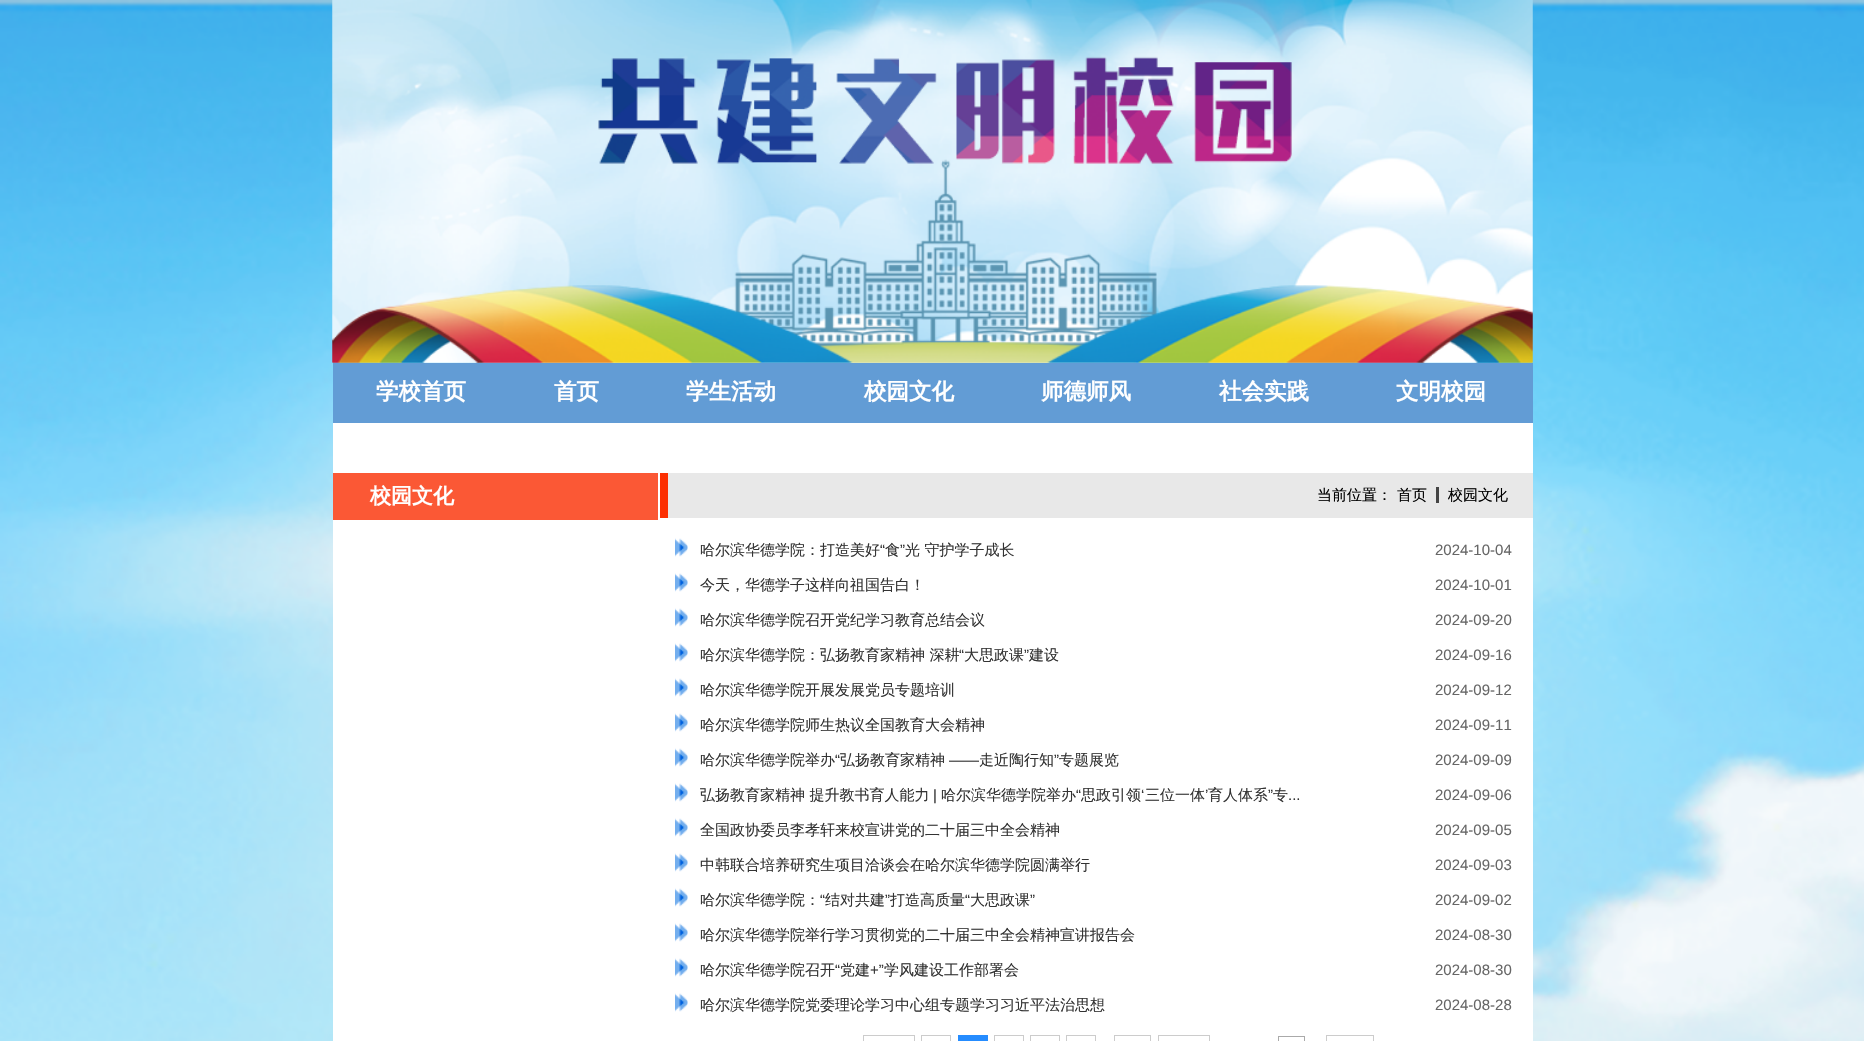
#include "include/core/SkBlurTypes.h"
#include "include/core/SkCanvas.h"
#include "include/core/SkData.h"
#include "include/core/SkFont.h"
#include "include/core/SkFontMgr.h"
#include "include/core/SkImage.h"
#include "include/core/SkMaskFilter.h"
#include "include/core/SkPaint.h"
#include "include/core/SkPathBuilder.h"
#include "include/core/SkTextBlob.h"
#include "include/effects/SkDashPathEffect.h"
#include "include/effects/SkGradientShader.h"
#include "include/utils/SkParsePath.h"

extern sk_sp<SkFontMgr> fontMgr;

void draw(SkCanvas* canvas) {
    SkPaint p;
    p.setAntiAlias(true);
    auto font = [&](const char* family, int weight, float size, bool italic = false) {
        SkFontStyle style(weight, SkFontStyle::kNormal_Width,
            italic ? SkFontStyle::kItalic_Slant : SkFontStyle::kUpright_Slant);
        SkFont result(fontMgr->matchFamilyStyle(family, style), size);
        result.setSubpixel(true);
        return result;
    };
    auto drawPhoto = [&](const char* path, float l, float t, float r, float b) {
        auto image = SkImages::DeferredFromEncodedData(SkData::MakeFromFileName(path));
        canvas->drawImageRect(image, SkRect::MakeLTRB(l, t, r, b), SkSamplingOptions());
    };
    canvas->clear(0xFFFFFFFF);
    drawPhoto("media/1.png", 0, 0, 1864, 1041);
    drawPhoto("media/2.png", 332, 0, 1533, 363);
    drawPhoto("media/3.png", 332, 0, 1533, 363);
    p.setColor(0xFFFFFFFF);
    canvas->drawRect(SkRect::MakeLTRB(333, 423, 1533, 1041), p);
    p.setColor(0xFF629CD5);
    canvas->drawRect(SkRect::MakeLTRB(333, 363, 1533, 423), p);
    auto font1 = font("WenQuanYi Zen Hei", 700, 22.5f);
    p.setColor(0xFFFFFFFF);
    {
        const struct { const char* s; float x, y; } items[] = {
            {"学校首页", 376, 399},
            {"首页", 554, 399},
            {"学生活动", 686, 399},
            {"校园文化", 864, 399},
            {"师德师风", 1041, 399},
            {"社会实践", 1219, 399},
            {"文明校园", 1396, 399},
        };
        for (auto [s, x, y] : items) {
            canvas->drawString(s, x, y, font1, p);
        }
    }
    p.setColor(0xFFFB5835);
    canvas->drawRect(SkRect::MakeLTRB(333, 473, 658, 520), p);
    auto font2 = font("WenQuanYi Zen Hei", 700, 21);
    p.setColor(0xFFFFFFFF);
    canvas->drawString("校园文化", 370, 503, font2, p);
    p.setColor(0xFFE8E8E8);
    canvas->drawRect(SkRect::MakeLTRB(668, 473, 1533, 518), p);
    p.setColor(0xFFFC2F02);
    canvas->drawRect(SkRect::MakeLTRB(660, 473, 668, 518), p);
    auto font3 = font("WenQuanYi Zen Hei", 500, 15);
    p.setColor(0xFF000000);
    canvas->drawString("当前位置：", 1317, 500, font3, p);
    canvas->drawString("首页", 1397, 500, font3, p);
    p.setColor(0xFF444444);
    canvas->drawRect(SkRect::MakeLTRB(1436, 487, 1439, 503), p);
    p.setColor(0xFF000000);
    canvas->drawString("校园文化", 1448, 500, font3, p);
    drawPhoto("media/4.png", 675, 538, 688, 557);
    p.setColor(0xFF333333);
    canvas->drawString("哈尔滨华德学院：打造美好", 700, 555, font3, p);
    auto font4 = font("Liberation Sans", 400, 15);
    canvas->drawString("“", 880, 555, font4, p);
    canvas->drawString("食", 885, 555, font3, p);
    canvas->drawString("”", 900, 555, font4, p);
    canvas->drawString("光 守护学子成长", 905, 555, font3, p);
    p.setColor(0xFF666666);
    canvas->drawString("2024-10-04", 1435, 555, font4, p);
    drawPhoto("media/4.png", 675, 573, 688, 592);
    p.setColor(0xFF333333);
    canvas->drawString("今天，华德学子这样向祖国告白！", 700, 590, font3, p);
    p.setColor(0xFF666666);
    canvas->drawString("2024-10-01", 1435, 590, font4, p);
    drawPhoto("media/4.png", 675, 608, 688, 627);
    p.setColor(0xFF333333);
    canvas->drawString("哈尔滨华德学院召开党纪学习教育总结会议", 700, 625, font3, p);
    p.setColor(0xFF666666);
    canvas->drawString("2024-09-20", 1435, 625, font4, p);
    drawPhoto("media/4.png", 675, 643, 688, 662);
    p.setColor(0xFF333333);
    canvas->drawString("哈尔滨华德学院：弘扬教育家精神 深耕", 700, 660, font3, p);
    canvas->drawString("“", 959, 660, font4, p);
    canvas->drawString("大思政课", 964, 660, font3, p);
    canvas->drawString("”", 1024, 660, font4, p);
    canvas->drawString("建设", 1029, 660, font3, p);
    p.setColor(0xFF666666);
    canvas->drawString("2024-09-16", 1435, 660, font4, p);
    drawPhoto("media/4.png", 675, 678, 688, 697);
    p.setColor(0xFF333333);
    canvas->drawString("哈尔滨华德学院开展发展党员专题培训", 700, 695, font3, p);
    p.setColor(0xFF666666);
    canvas->drawString("2024-09-12", 1435, 695, font4, p);
    drawPhoto("media/4.png", 675, 713, 688, 732);
    p.setColor(0xFF333333);
    canvas->drawString("哈尔滨华德学院师生热议全国教育大会精神", 700, 730, font3, p);
    p.setColor(0xFF666666);
    canvas->drawString("2024-09-11", 1435, 730, font4, p);
    drawPhoto("media/4.png", 675, 748, 688, 767);
    p.setColor(0xFF333333);
    canvas->drawString("哈尔滨华德学院举办", 700, 765, font3, p);
    canvas->drawString("“", 835, 765, font4, p);
    canvas->drawString("弘扬教育家精神", 840, 765, font3, p);
    canvas->drawString("——", 949, 765, font4, p);
    canvas->drawString("走近陶行知", 979, 765, font3, p);
    canvas->drawString("”", 1054, 765, font4, p);
    canvas->drawString("专题展览", 1059, 765, font3, p);
    p.setColor(0xFF666666);
    canvas->drawString("2024-09-09", 1435, 765, font4, p);
    drawPhoto("media/4.png", 675, 783, 688, 802);
    p.setColor(0xFF333333);
    canvas->drawString("弘扬教育家精神 提升教书育人能力", 700, 800, font3, p);
    canvas->drawString("|", 933, 800, font4, p);
    canvas->drawString("哈尔滨华德学院举办", 941, 800, font3, p);
    canvas->drawString("“", 1076, 800, font4, p);
    canvas->drawString("思政引领", 1081, 800, font3, p);
    canvas->drawString("‘", 1141, 800, font4, p);
    canvas->drawString("三位一体", 1145, 800, font3, p);
    canvas->drawString("’", 1205, 800, font4, p);
    canvas->drawString("育人体系", 1208, 800, font3, p);
    canvas->drawString("”", 1268, 800, font4, p);
    canvas->drawString("专", 1273, 800, font3, p);
    canvas->drawString("...", 1288, 800, font4, p);
    p.setColor(0xFF666666);
    canvas->drawString("2024-09-06", 1435, 800, font4, p);
    drawPhoto("media/4.png", 675, 818, 688, 837);
    p.setColor(0xFF333333);
    canvas->drawString("全国政协委员李孝轩来校宣讲党的二十届三中全会精神", 700, 835, font3, p);
    p.setColor(0xFF666666);
    canvas->drawString("2024-09-05", 1435, 835, font4, p);
    drawPhoto("media/4.png", 675, 853, 688, 872);
    p.setColor(0xFF333333);
    canvas->drawString("中韩联合培养研究生项目洽谈会在哈尔滨华德学院圆满举行", 700, 870, font3, p);
    p.setColor(0xFF666666);
    canvas->drawString("2024-09-03", 1435, 870, font4, p);
    drawPhoto("media/4.png", 675, 888, 688, 907);
    p.setColor(0xFF333333);
    canvas->drawString("哈尔滨华德学院：", 700, 905, font3, p);
    canvas->drawString("“", 820, 905, font4, p);
    canvas->drawString("结对共建", 825, 905, font3, p);
    canvas->drawString("”", 885, 905, font4, p);
    canvas->drawString("打造高质量", 890, 905, font3, p);
    canvas->drawString("“", 965, 905, font4, p);
    canvas->drawString("大思政课", 970, 905, font3, p);
    canvas->drawString("”", 1030, 905, font4, p);
    p.setColor(0xFF666666);
    canvas->drawString("2024-09-02", 1435, 905, font4, p);
    drawPhoto("media/4.png", 675, 923, 688, 942);
    p.setColor(0xFF333333);
    canvas->drawString("哈尔滨华德学院举行学习贯彻党的二十届三中全会精神宣讲报告会", 700, 940, font3, p);
    p.setColor(0xFF666666);
    canvas->drawString("2024-08-30", 1435, 940, font4, p);
    drawPhoto("media/4.png", 675, 958, 688, 977);
    p.setColor(0xFF333333);
    canvas->drawString("哈尔滨华德学院召开", 700, 975, font3, p);
    canvas->drawString("“", 835, 975, font4, p);
    canvas->drawString("党建", 840, 975, font3, p);
    canvas->drawString("+”", 870, 975, font4, p);
    canvas->drawString("学风建设工作部署会", 884, 975, font3, p);
    p.setColor(0xFF666666);
    canvas->drawString("2024-08-30", 1435, 975, font4, p);
    drawPhoto("media/4.png", 675, 993, 688, 1012);
    p.setColor(0xFF333333);
    canvas->drawString("哈尔滨华德学院党委理论学习中心组专题学习习近平法治思想", 700, 1010, font3, p);
    p.setColor(0xFF666666);
    canvas->drawString("2024-08-28", 1435, 1010, font4, p);
    p.setStyle(SkPaint::kStroke_Style);
    p.setStrokeWidth(1);
    p.setColor(0xFFCCCCCC);
    canvas->drawRect(SkRect::MakeLTRB(863.5f, 1035.5f, 914.5f, 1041.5f), p);
    canvas->drawRect(SkRect::MakeLTRB(921.5f, 1035.5f, 950.5f, 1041.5f), p);
    p.setStyle(SkPaint::kFill_Style);
    p.setColor(0xFF258CFF);
    canvas->drawRect(SkRect::MakeLTRB(958, 1035, 988, 1041), p);
    p.setStyle(SkPaint::kStroke_Style);
    p.setColor(0xFFCCCCCC);
    canvas->drawRect(SkRect::MakeLTRB(994.5f, 1035.5f, 1023.5f, 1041.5f), p);
    canvas->drawRect(SkRect::MakeLTRB(1030.5f, 1035.5f, 1059.5f, 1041.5f), p);
    canvas->drawRect(SkRect::MakeLTRB(1066.5f, 1035.5f, 1095.5f, 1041.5f), p);
    canvas->drawRect(SkRect::MakeLTRB(1114.5f, 1035.5f, 1150.5f, 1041.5f), p);
    canvas->drawRect(SkRect::MakeLTRB(1158.5f, 1035.5f, 1209.5f, 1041.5f), p);
    p.setColor(0xFFAAAAAA);
    canvas->drawRect(SkRect::MakeLTRB(1278.5f, 1036.5f, 1304.5f, 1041.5f), p);
    p.setColor(0xFFCCCCCC);
    canvas->drawRect(SkRect::MakeLTRB(1326.5f, 1035.5f, 1373.5f, 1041.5f), p);
}
